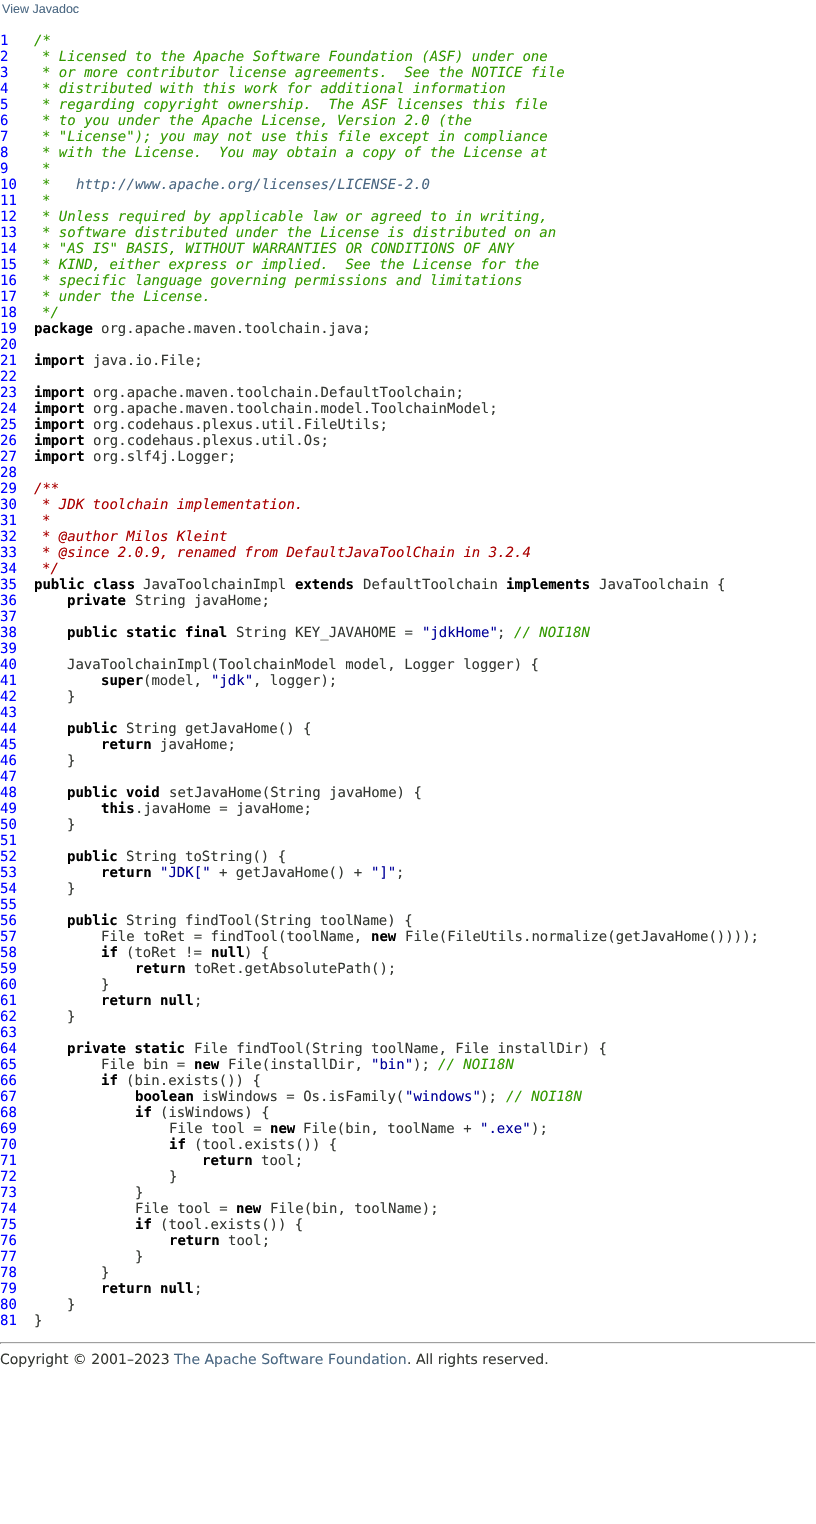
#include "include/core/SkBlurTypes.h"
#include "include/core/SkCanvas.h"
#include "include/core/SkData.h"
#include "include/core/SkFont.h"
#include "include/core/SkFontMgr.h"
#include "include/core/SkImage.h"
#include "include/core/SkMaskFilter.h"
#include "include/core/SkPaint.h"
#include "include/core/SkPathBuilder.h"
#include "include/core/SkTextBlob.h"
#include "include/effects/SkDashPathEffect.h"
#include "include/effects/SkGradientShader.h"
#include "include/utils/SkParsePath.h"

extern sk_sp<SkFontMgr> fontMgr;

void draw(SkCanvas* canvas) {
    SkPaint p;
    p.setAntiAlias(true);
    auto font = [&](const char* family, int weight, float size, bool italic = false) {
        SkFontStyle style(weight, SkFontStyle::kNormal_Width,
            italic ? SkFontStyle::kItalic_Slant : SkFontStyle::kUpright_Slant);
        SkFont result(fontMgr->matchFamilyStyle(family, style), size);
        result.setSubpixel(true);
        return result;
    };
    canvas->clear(0xFFFFFFFF);
    auto font1 = font("Liberation Sans", 400, 12.5f);
    p.setColor(0xFF4A6782);
    canvas->drawString("View Javadoc", 2, 13, font1, p);
    auto font2 = font("DejaVu Sans Mono", 400, 14);
    p.setColor(0xFF0000FF);
    canvas->drawString("1", 0, 45, font2, p);
    auto font3 = font("DejaVu Sans Mono", 400, 14, true);
    p.setColor(0xFF339900);
    canvas->drawString("/*", 34, 45, font3, p);
    p.setColor(0xFF0000FF);
    canvas->drawString("2", 0, 61, font2, p);
    p.setColor(0xFF339900);
    canvas->drawString("* Licensed to the Apache Software Foundation (ASF) under one", 42, 61, font3, p);
    p.setColor(0xFF0000FF);
    canvas->drawString("3", 0, 77, font2, p);
    p.setColor(0xFF339900);
    canvas->drawString("* or more contributor license agreements.  See the NOTICE file", 42, 77, font3, p);
    p.setColor(0xFF0000FF);
    canvas->drawString("4", 0, 93, font2, p);
    p.setColor(0xFF339900);
    canvas->drawString("* distributed with this work for additional information", 42, 93, font3, p);
    p.setColor(0xFF0000FF);
    canvas->drawString("5", 0, 109, font2, p);
    p.setColor(0xFF339900);
    canvas->drawString("* regarding copyright ownership.  The ASF licenses this file", 42, 109, font3, p);
    p.setColor(0xFF0000FF);
    canvas->drawString("6", 0, 125, font2, p);
    p.setColor(0xFF339900);
    canvas->drawString("* to you under the Apache License, Version 2.0 (the", 42, 125, font3, p);
    p.setColor(0xFF0000FF);
    canvas->drawString("7", 0, 141, font2, p);
    p.setColor(0xFF339900);
    canvas->drawString("* \"License\"); you may not use this file except in compliance", 42, 141, font3, p);
    p.setColor(0xFF0000FF);
    canvas->drawString("8", 0, 157, font2, p);
    p.setColor(0xFF339900);
    canvas->drawString("* with the License.  You may obtain a copy of the License at", 42, 157, font3, p);
    p.setColor(0xFF0000FF);
    canvas->drawString("9", 0, 173, font2, p);
    p.setColor(0xFF339900);
    canvas->drawString("*", 42, 173, font3, p);
    p.setColor(0xFF0000FF);
    canvas->drawString("10", 0, 189, font2, p);
    p.setColor(0xFF339900);
    canvas->drawString("*", 42, 189, font3, p);
    p.setColor(0xFF4A6782);
    canvas->drawString("http://www.apache.org/licenses/LICENSE-2.0", 76, 189, font3, p);
    p.setColor(0xFF0000FF);
    canvas->drawString("11", 0, 205, font2, p);
    p.setColor(0xFF339900);
    canvas->drawString("*", 42, 205, font3, p);
    p.setColor(0xFF0000FF);
    canvas->drawString("12", 0, 221, font2, p);
    p.setColor(0xFF339900);
    canvas->drawString("* Unless required by applicable law or agreed to in writing,", 42, 221, font3, p);
    p.setColor(0xFF0000FF);
    canvas->drawString("13", 0, 237, font2, p);
    p.setColor(0xFF339900);
    canvas->drawString("* software distributed under the License is distributed on an", 42, 237, font3, p);
    p.setColor(0xFF0000FF);
    canvas->drawString("14", 0, 253, font2, p);
    p.setColor(0xFF339900);
    canvas->drawString("* \"AS IS\" BASIS, WITHOUT WARRANTIES OR CONDITIONS OF ANY", 42, 253, font3, p);
    p.setColor(0xFF0000FF);
    canvas->drawString("15", 0, 269, font2, p);
    p.setColor(0xFF339900);
    canvas->drawString("* KIND, either express or implied.  See the License for the", 42, 269, font3, p);
    p.setColor(0xFF0000FF);
    canvas->drawString("16", 0, 285, font2, p);
    p.setColor(0xFF339900);
    canvas->drawString("* specific language governing permissions and limitations", 42, 285, font3, p);
    p.setColor(0xFF0000FF);
    canvas->drawString("17", 0, 301, font2, p);
    p.setColor(0xFF339900);
    canvas->drawString("* under the License.", 42, 301, font3, p);
    p.setColor(0xFF0000FF);
    canvas->drawString("18", 0, 317, font2, p);
    p.setColor(0xFF339900);
    canvas->drawString("*/", 42, 317, font3, p);
    p.setColor(0xFF0000FF);
    canvas->drawString("19", 0, 333, font2, p);
    auto font4 = font("DejaVu Sans Mono", 700, 14);
    p.setColor(0xFF000000);
    canvas->drawString("package", 34, 333, font4, p);
    p.setColor(0xFF353833);
    canvas->drawString("org.apache.maven.toolchain.java;", 101, 333, font2, p);
    p.setColor(0xFF0000FF);
    canvas->drawString("20", 0, 349, font2, p);
    canvas->drawString("21", 0, 365, font2, p);
    p.setColor(0xFF000000);
    canvas->drawString("import", 34, 365, font4, p);
    p.setColor(0xFF353833);
    canvas->drawString("java.io.File;", 93, 365, font2, p);
    p.setColor(0xFF0000FF);
    canvas->drawString("22", 0, 381, font2, p);
    canvas->drawString("23", 0, 397, font2, p);
    p.setColor(0xFF000000);
    canvas->drawString("import", 34, 397, font4, p);
    p.setColor(0xFF353833);
    canvas->drawString("org.apache.maven.toolchain.DefaultToolchain;", 93, 397, font2, p);
    p.setColor(0xFF0000FF);
    canvas->drawString("24", 0, 413, font2, p);
    p.setColor(0xFF000000);
    canvas->drawString("import", 34, 413, font4, p);
    p.setColor(0xFF353833);
    canvas->drawString("org.apache.maven.toolchain.model.ToolchainModel;", 93, 413, font2, p);
    p.setColor(0xFF0000FF);
    canvas->drawString("25", 0, 429, font2, p);
    p.setColor(0xFF000000);
    canvas->drawString("import", 34, 429, font4, p);
    p.setColor(0xFF353833);
    canvas->drawString("org.codehaus.plexus.util.FileUtils;", 93, 429, font2, p);
    p.setColor(0xFF0000FF);
    canvas->drawString("26", 0, 445, font2, p);
    p.setColor(0xFF000000);
    canvas->drawString("import", 34, 445, font4, p);
    p.setColor(0xFF353833);
    canvas->drawString("org.codehaus.plexus.util.Os;", 93, 445, font2, p);
    p.setColor(0xFF0000FF);
    canvas->drawString("27", 0, 461, font2, p);
    p.setColor(0xFF000000);
    canvas->drawString("import", 34, 461, font4, p);
    p.setColor(0xFF353833);
    canvas->drawString("org.slf4j.Logger;", 93, 461, font2, p);
    p.setColor(0xFF0000FF);
    canvas->drawString("28", 0, 477, font2, p);
    canvas->drawString("29", 0, 493, font2, p);
    p.setColor(0xFFAA0000);
    canvas->drawString("/**", 34, 493, font3, p);
    p.setColor(0xFF0000FF);
    canvas->drawString("30", 0, 509, font2, p);
    p.setColor(0xFFAA0000);
    canvas->drawString("* JDK toolchain implementation.", 42, 509, font3, p);
    p.setColor(0xFF0000FF);
    canvas->drawString("31", 0, 525, font2, p);
    p.setColor(0xFFAA0000);
    canvas->drawString("*", 42, 525, font3, p);
    p.setColor(0xFF0000FF);
    canvas->drawString("32", 0, 541, font2, p);
    p.setColor(0xFFAA0000);
    canvas->drawString("* @author Milos Kleint", 42, 541, font3, p);
    p.setColor(0xFF0000FF);
    canvas->drawString("33", 0, 557, font2, p);
    p.setColor(0xFFAA0000);
    canvas->drawString("* @since 2.0.9, renamed from DefaultJavaToolChain in 3.2.4", 42, 557, font3, p);
    p.setColor(0xFF0000FF);
    canvas->drawString("34", 0, 573, font2, p);
    p.setColor(0xFFAA0000);
    canvas->drawString("*/", 42, 573, font3, p);
    p.setColor(0xFF0000FF);
    canvas->drawString("35", 0, 589, font2, p);
    p.setColor(0xFF000000);
    canvas->drawString("public class", 34, 589, font4, p);
    p.setColor(0xFF353833);
    canvas->drawString("JavaToolchainImpl", 143, 589, font2, p);
    p.setColor(0xFF000000);
    canvas->drawString("extends", 295, 589, font4, p);
    p.setColor(0xFF353833);
    canvas->drawString("DefaultToolchain", 363, 589, font2, p);
    p.setColor(0xFF000000);
    canvas->drawString("implements", 506, 589, font4, p);
    p.setColor(0xFF353833);
    canvas->drawString("JavaToolchain {", 599, 589, font2, p);
    p.setColor(0xFF0000FF);
    canvas->drawString("36", 0, 605, font2, p);
    p.setColor(0xFF000000);
    canvas->drawString("private", 67, 605, font4, p);
    p.setColor(0xFF353833);
    canvas->drawString("String javaHome;", 135, 605, font2, p);
    p.setColor(0xFF0000FF);
    canvas->drawString("37", 0, 621, font2, p);
    canvas->drawString("38", 0, 637, font2, p);
    p.setColor(0xFF000000);
    canvas->drawString("public static final", 67, 637, font4, p);
    p.setColor(0xFF353833);
    canvas->drawString("String KEY_JAVAHOME =", 236, 637, font2, p);
    p.setColor(0xFF000099);
    canvas->drawString("\"jdkHome\"", 422, 637, font2, p);
    p.setColor(0xFF353833);
    canvas->drawString(";", 497, 637, font2, p);
    p.setColor(0xFF339900);
    canvas->drawString("// NOI18N", 514, 637, font3, p);
    p.setColor(0xFF0000FF);
    canvas->drawString("39", 0, 653, font2, p);
    canvas->drawString("40", 0, 669, font2, p);
    p.setColor(0xFF353833);
    canvas->drawString("JavaToolchainImpl(ToolchainModel model, Logger logger) {", 67, 669, font2, p);
    p.setColor(0xFF0000FF);
    canvas->drawString("41", 0, 685, font2, p);
    p.setColor(0xFF000000);
    canvas->drawString("super", 101, 685, font4, p);
    p.setColor(0xFF353833);
    canvas->drawString("(model,", 143, 685, font2, p);
    p.setColor(0xFF000099);
    canvas->drawString("\"jdk\"", 211, 685, font2, p);
    p.setColor(0xFF353833);
    canvas->drawString(", logger);", 253, 685, font2, p);
    p.setColor(0xFF0000FF);
    canvas->drawString("42", 0, 701, font2, p);
    p.setColor(0xFF353833);
    canvas->drawString("}", 67, 701, font2, p);
    p.setColor(0xFF0000FF);
    canvas->drawString("43", 0, 717, font2, p);
    canvas->drawString("44", 0, 733, font2, p);
    p.setColor(0xFF000000);
    canvas->drawString("public", 67, 733, font4, p);
    p.setColor(0xFF353833);
    canvas->drawString("String getJavaHome() {", 126, 733, font2, p);
    p.setColor(0xFF0000FF);
    canvas->drawString("45", 0, 749, font2, p);
    p.setColor(0xFF000000);
    canvas->drawString("return", 101, 749, font4, p);
    p.setColor(0xFF353833);
    canvas->drawString("javaHome;", 160, 749, font2, p);
    p.setColor(0xFF0000FF);
    canvas->drawString("46", 0, 765, font2, p);
    p.setColor(0xFF353833);
    canvas->drawString("}", 67, 765, font2, p);
    p.setColor(0xFF0000FF);
    canvas->drawString("47", 0, 781, font2, p);
    canvas->drawString("48", 0, 797, font2, p);
    p.setColor(0xFF000000);
    canvas->drawString("public void", 67, 797, font4, p);
    p.setColor(0xFF353833);
    canvas->drawString("setJavaHome(String javaHome) {", 169, 797, font2, p);
    p.setColor(0xFF0000FF);
    canvas->drawString("49", 0, 813, font2, p);
    p.setColor(0xFF000000);
    canvas->drawString("this", 101, 813, font4, p);
    p.setColor(0xFF353833);
    canvas->drawString(".javaHome = javaHome;", 135, 813, font2, p);
    p.setColor(0xFF0000FF);
    canvas->drawString("50", 0, 829, font2, p);
    p.setColor(0xFF353833);
    canvas->drawString("}", 67, 829, font2, p);
    p.setColor(0xFF0000FF);
    canvas->drawString("51", 0, 845, font2, p);
    canvas->drawString("52", 0, 861, font2, p);
    p.setColor(0xFF000000);
    canvas->drawString("public", 67, 861, font4, p);
    p.setColor(0xFF353833);
    canvas->drawString("String toString() {", 126, 861, font2, p);
    p.setColor(0xFF0000FF);
    canvas->drawString("53", 0, 877, font2, p);
    p.setColor(0xFF000000);
    canvas->drawString("return", 101, 877, font4, p);
    p.setColor(0xFF000099);
    canvas->drawString("\"JDK[\"", 160, 877, font2, p);
    p.setColor(0xFF353833);
    canvas->drawString("+ getJavaHome() +", 219, 877, font2, p);
    p.setColor(0xFF000099);
    canvas->drawString("\"]\"", 371, 877, font2, p);
    p.setColor(0xFF353833);
    canvas->drawString(";", 396, 877, font2, p);
    p.setColor(0xFF0000FF);
    canvas->drawString("54", 0, 893, font2, p);
    p.setColor(0xFF353833);
    canvas->drawString("}", 67, 893, font2, p);
    p.setColor(0xFF0000FF);
    canvas->drawString("55", 0, 909, font2, p);
    canvas->drawString("56", 0, 925, font2, p);
    p.setColor(0xFF000000);
    canvas->drawString("public", 67, 925, font4, p);
    p.setColor(0xFF353833);
    canvas->drawString("String findTool(String toolName) {", 126, 925, font2, p);
    p.setColor(0xFF0000FF);
    canvas->drawString("57", 0, 941, font2, p);
    p.setColor(0xFF353833);
    canvas->drawString("File toRet = findTool(toolName,", 101, 941, font2, p);
    p.setColor(0xFF000000);
    canvas->drawString("new", 371, 941, font4, p);
    p.setColor(0xFF353833);
    canvas->drawString("File(FileUtils.normalize(getJavaHome())));", 405, 941, font2, p);
    p.setColor(0xFF0000FF);
    canvas->drawString("58", 0, 957, font2, p);
    p.setColor(0xFF000000);
    canvas->drawString("if", 101, 957, font4, p);
    p.setColor(0xFF353833);
    canvas->drawString("(toRet !=", 126, 957, font2, p);
    p.setColor(0xFF000000);
    canvas->drawString("null", 211, 957, font4, p);
    p.setColor(0xFF353833);
    canvas->drawString(") {", 244, 957, font2, p);
    p.setColor(0xFF0000FF);
    canvas->drawString("59", 0, 973, font2, p);
    p.setColor(0xFF000000);
    canvas->drawString("return", 135, 973, font4, p);
    p.setColor(0xFF353833);
    canvas->drawString("toRet.getAbsolutePath();", 194, 973, font2, p);
    p.setColor(0xFF0000FF);
    canvas->drawString("60", 0, 989, font2, p);
    p.setColor(0xFF353833);
    canvas->drawString("}", 101, 989, font2, p);
    p.setColor(0xFF0000FF);
    canvas->drawString("61", 0, 1005, font2, p);
    p.setColor(0xFF000000);
    canvas->drawString("return null", 101, 1005, font4, p);
    p.setColor(0xFF353833);
    canvas->drawString(";", 194, 1005, font2, p);
    p.setColor(0xFF0000FF);
    canvas->drawString("62", 0, 1021, font2, p);
    p.setColor(0xFF353833);
    canvas->drawString("}", 67, 1021, font2, p);
    p.setColor(0xFF0000FF);
    canvas->drawString("63", 0, 1037, font2, p);
    canvas->drawString("64", 0, 1053, font2, p);
    p.setColor(0xFF000000);
    canvas->drawString("private static", 67, 1053, font4, p);
    p.setColor(0xFF353833);
    canvas->drawString("File findTool(String toolName, File installDir) {", 194, 1053, font2, p);
    p.setColor(0xFF0000FF);
    canvas->drawString("65", 0, 1069, font2, p);
    p.setColor(0xFF353833);
    canvas->drawString("File bin =", 101, 1069, font2, p);
    p.setColor(0xFF000000);
    canvas->drawString("new", 194, 1069, font4, p);
    p.setColor(0xFF353833);
    canvas->drawString("File(installDir,", 228, 1069, font2, p);
    p.setColor(0xFF000099);
    canvas->drawString("\"bin\"", 371, 1069, font2, p);
    p.setColor(0xFF353833);
    canvas->drawString(");", 413, 1069, font2, p);
    p.setColor(0xFF339900);
    canvas->drawString("// NOI18N", 438, 1069, font3, p);
    p.setColor(0xFF0000FF);
    canvas->drawString("66", 0, 1085, font2, p);
    p.setColor(0xFF000000);
    canvas->drawString("if", 101, 1085, font4, p);
    p.setColor(0xFF353833);
    canvas->drawString("(bin.exists()) {", 126, 1085, font2, p);
    p.setColor(0xFF0000FF);
    canvas->drawString("67", 0, 1101, font2, p);
    p.setColor(0xFF000000);
    canvas->drawString("boolean", 135, 1101, font4, p);
    p.setColor(0xFF353833);
    canvas->drawString("isWindows = Os.isFamily(", 202, 1101, font2, p);
    p.setColor(0xFF000099);
    canvas->drawString("\"windows\"", 405, 1101, font2, p);
    p.setColor(0xFF353833);
    canvas->drawString(");", 480, 1101, font2, p);
    p.setColor(0xFF339900);
    canvas->drawString("// NOI18N", 506, 1101, font3, p);
    p.setColor(0xFF0000FF);
    canvas->drawString("68", 0, 1117, font2, p);
    p.setColor(0xFF000000);
    canvas->drawString("if", 135, 1117, font4, p);
    p.setColor(0xFF353833);
    canvas->drawString("(isWindows) {", 160, 1117, font2, p);
    p.setColor(0xFF0000FF);
    canvas->drawString("69", 0, 1133, font2, p);
    p.setColor(0xFF353833);
    canvas->drawString("File tool =", 169, 1133, font2, p);
    p.setColor(0xFF000000);
    canvas->drawString("new", 270, 1133, font4, p);
    p.setColor(0xFF353833);
    canvas->drawString("File(bin, toolName +", 303, 1133, font2, p);
    p.setColor(0xFF000099);
    canvas->drawString("\".exe\"", 480, 1133, font2, p);
    p.setColor(0xFF353833);
    canvas->drawString(");", 531, 1133, font2, p);
    p.setColor(0xFF0000FF);
    canvas->drawString("70", 0, 1149, font2, p);
    p.setColor(0xFF000000);
    canvas->drawString("if", 169, 1149, font4, p);
    p.setColor(0xFF353833);
    canvas->drawString("(tool.exists()) {", 194, 1149, font2, p);
    p.setColor(0xFF0000FF);
    canvas->drawString("71", 0, 1165, font2, p);
    p.setColor(0xFF000000);
    canvas->drawString("return", 202, 1165, font4, p);
    p.setColor(0xFF353833);
    canvas->drawString("tool;", 261, 1165, font2, p);
    p.setColor(0xFF0000FF);
    canvas->drawString("72", 0, 1181, font2, p);
    p.setColor(0xFF353833);
    canvas->drawString("}", 169, 1181, font2, p);
    p.setColor(0xFF0000FF);
    canvas->drawString("73", 0, 1197, font2, p);
    p.setColor(0xFF353833);
    canvas->drawString("}", 135, 1197, font2, p);
    p.setColor(0xFF0000FF);
    canvas->drawString("74", 0, 1213, font2, p);
    p.setColor(0xFF353833);
    canvas->drawString("File tool =", 135, 1213, font2, p);
    p.setColor(0xFF000000);
    canvas->drawString("new", 236, 1213, font4, p);
    p.setColor(0xFF353833);
    canvas->drawString("File(bin, toolName);", 270, 1213, font2, p);
    p.setColor(0xFF0000FF);
    canvas->drawString("75", 0, 1229, font2, p);
    p.setColor(0xFF000000);
    canvas->drawString("if", 135, 1229, font4, p);
    p.setColor(0xFF353833);
    canvas->drawString("(tool.exists()) {", 160, 1229, font2, p);
    p.setColor(0xFF0000FF);
    canvas->drawString("76", 0, 1245, font2, p);
    p.setColor(0xFF000000);
    canvas->drawString("return", 169, 1245, font4, p);
    p.setColor(0xFF353833);
    canvas->drawString("tool;", 228, 1245, font2, p);
    p.setColor(0xFF0000FF);
    canvas->drawString("77", 0, 1261, font2, p);
    p.setColor(0xFF353833);
    canvas->drawString("}", 135, 1261, font2, p);
    p.setColor(0xFF0000FF);
    canvas->drawString("78", 0, 1277, font2, p);
    p.setColor(0xFF353833);
    canvas->drawString("}", 101, 1277, font2, p);
    p.setColor(0xFF0000FF);
    canvas->drawString("79", 0, 1293, font2, p);
    p.setColor(0xFF000000);
    canvas->drawString("return null", 101, 1293, font4, p);
    p.setColor(0xFF353833);
    canvas->drawString(";", 194, 1293, font2, p);
    p.setColor(0xFF0000FF);
    canvas->drawString("80", 0, 1309, font2, p);
    p.setColor(0xFF353833);
    canvas->drawString("}", 67, 1309, font2, p);
    p.setColor(0xFF0000FF);
    canvas->drawString("81", 0, 1325, font2, p);
    p.setColor(0xFF353833);
    canvas->drawString("}", 34, 1325, font2, p);
    {
        const struct { float l, t, r, b; SkColor color; } items[] = {
            {0, 1342, 816, 1343, 0xFF9F9F9F},
            {815, 1342, 816, 1344, 0xFFEEEEEE},
            {0, 1343, 816, 1344, 0xFFEEEEEE},
            {0, 1342, 1, 1344, 0xFF9F9F9F},
        };
        for (auto [l, t, r, b, color] : items) {
            p.setColor(color);
            canvas->drawRect(SkRect::MakeLTRB(l, t, r, b), p);
        }
    }
    auto font5 = font("DejaVu Sans", 400, 14);
    p.setColor(0xFF353833);
    canvas->drawString("Copyright © 2001–2023", 0, 1364, font5, p);
    p.setColor(0xFF4A6782);
    canvas->drawString("The Apache Software Foundation", 174, 1364, font5, p);
    p.setColor(0xFF353833);
    canvas->drawString(". All rights reserved.", 407, 1364, font5, p);
}
